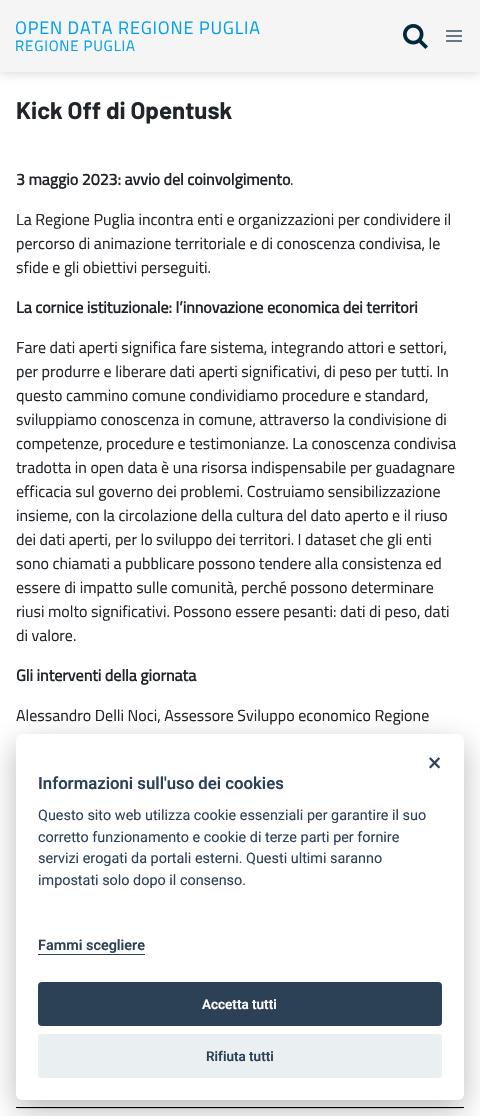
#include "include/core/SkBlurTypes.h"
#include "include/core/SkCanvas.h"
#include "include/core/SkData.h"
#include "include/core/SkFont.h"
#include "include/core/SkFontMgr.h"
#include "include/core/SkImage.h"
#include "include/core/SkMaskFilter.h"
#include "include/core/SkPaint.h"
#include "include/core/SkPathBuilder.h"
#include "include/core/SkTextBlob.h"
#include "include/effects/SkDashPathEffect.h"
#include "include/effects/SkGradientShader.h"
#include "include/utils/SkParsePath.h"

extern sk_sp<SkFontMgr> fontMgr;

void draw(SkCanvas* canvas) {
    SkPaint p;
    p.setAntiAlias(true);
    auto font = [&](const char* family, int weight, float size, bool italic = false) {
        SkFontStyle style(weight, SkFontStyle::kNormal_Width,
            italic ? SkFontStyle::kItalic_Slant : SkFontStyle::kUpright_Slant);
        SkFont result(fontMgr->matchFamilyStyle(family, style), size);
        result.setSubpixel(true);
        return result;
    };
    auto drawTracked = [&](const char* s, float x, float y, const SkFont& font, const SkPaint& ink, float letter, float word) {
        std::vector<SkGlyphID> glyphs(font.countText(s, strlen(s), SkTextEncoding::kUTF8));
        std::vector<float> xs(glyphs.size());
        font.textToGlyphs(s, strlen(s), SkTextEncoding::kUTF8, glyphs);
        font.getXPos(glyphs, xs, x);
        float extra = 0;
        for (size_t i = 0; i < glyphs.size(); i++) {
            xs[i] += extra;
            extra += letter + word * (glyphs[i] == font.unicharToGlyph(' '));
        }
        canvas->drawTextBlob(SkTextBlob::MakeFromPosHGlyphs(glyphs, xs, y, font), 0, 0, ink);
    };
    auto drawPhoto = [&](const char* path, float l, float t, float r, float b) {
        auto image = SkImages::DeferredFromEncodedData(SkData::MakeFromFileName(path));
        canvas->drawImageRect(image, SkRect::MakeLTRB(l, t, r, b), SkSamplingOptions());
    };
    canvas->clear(0xFFFFFFFF);
    p.setColor(0x29000000);
    p.setMaskFilter(SkMaskFilter::MakeBlur(kNormal_SkBlurStyle, 5));
    canvas->drawRect(SkRect::MakeLTRB(0, 1, 480, 73), p);
    p.setMaskFilter(nullptr);
    p.setColor(0xFFF5F5F5);
    canvas->drawRect(SkRect::MakeLTRB(0, 0, 480, 72), p);
    auto font1 = font("Titillium Web", 400, 18);
    p.setColor(0xFF029FE8);
    drawTracked("OPEN DATA REGIONE PUGLIA", 15, 34, font1, p, 0.8f, 0);
    auto font2 = font("Titillium Web", 400, 15);
    drawTracked("REGIONE PUGLIA", 15, 51, font2, p, 0.8f, 0);
    drawPhoto("media/1.png", 403, 24, 428, 49);
    drawPhoto("media/2.png", 446, 30, 462, 42);
    auto font3 = font("Barlow", 700, 24);
    p.setColor(0xFF212529);
    canvas->drawString("Kick Off di Opentusk", 16, 119, font3, p);
    auto font4 = font("Titillium Web", 700, 16);
    canvas->drawString("3 maggio 2023: avvio del coinvolgimento", 16, 185, font4, p);
    auto font5 = font("Titillium Web", 400, 16);
    {
        const struct { const char* s; float x, y; } items[] = {
            {".", 290, 185},
            {"La Regione Puglia incontra enti e organizzazioni per condividere il", 16, 225},
            {"percorso di animazione territoriale e di conoscenza condivisa, le", 16, 249},
            {"sfide e gli obiettivi perseguiti.", 16, 273},
        };
        for (auto [s, x, y] : items) {
            canvas->drawString(s, x, y, font5, p);
        }
    }
    canvas->drawString("La cornice istituzionale: l’innovazione economica dei territori", 16, 313, font4, p);
    {
        const struct { const char* s; float x, y; } items[] = {
            {"Fare dati aperti significa fare sistema, integrando attori e settori,", 16, 353},
            {"per produrre e liberare dati aperti significativi, di peso per tutti. In", 16, 377},
            {"questo cammino comune condividiamo procedure e standard,", 16, 401},
            {"sviluppiamo conoscenza in comune, attraverso la condivisione di", 16, 425},
            {"competenze, procedure e testimonianze. La conoscenza condivisa", 16, 449},
            {"tradotta in open data è una risorsa indispensabile per guadagnare", 16, 473},
            {"efficacia sul governo dei problemi. Costruiamo sensibilizzazione", 16, 497},
            {"insieme, con la circolazione della cultura del dato aperto e il riuso", 16, 521},
            {"dei dati aperti, per lo sviluppo dei territori. I dataset che gli enti", 16, 545},
            {"sono chiamati a pubblicare possono tendere alla consistenza ed", 16, 569},
            {"essere di impatto sulle comunità, perché possono determinare", 16, 593},
            {"riusi molto significativi. Possono essere pesanti: dati di peso, dati", 16, 617},
            {"di valore.", 16, 641},
        };
        for (auto [s, x, y] : items) {
            canvas->drawString(s, x, y, font5, p);
        }
    }
    canvas->drawString("Gli interventi della giornata", 16, 681, font4, p);
    canvas->drawString("Alessandro Delli Noci, Assessore Sviluppo economico Regione", 16, 721, font5, p);
    p.setColor(0xFF000000);
    canvas->drawRect(SkRect::MakeLTRB(16, 1107, 464, 1108), p);
    p.setColor(0xFFDFDFDF);
    canvas->drawRect(SkRect::MakeLTRB(18, 1108, 462, 1109), p);
    p.setColor(0x47020203);
    p.setMaskFilter(SkMaskFilter::MakeBlur(kNormal_SkBlurStyle, 15));
    canvas->drawRoundRect(SkRect::MakeLTRB(16, 744, 464, 1110), 6, 6, p);
    p.setMaskFilter(nullptr);
    p.setColor(0xFFFFFFFF);
    canvas->drawRoundRect(SkRect::MakeLTRB(16, 734, 464, 1100), 6, 6, p);
    auto font6 = font("Roboto", 400, 25);
    p.setColor(0xFF2D4156);
    canvas->drawString("×", 428, 771, font6, p);
    auto font7 = font("Roboto", 600, 16.75f);
    canvas->drawString("Informazioni sull'uso dei cookies", 38, 789, font7, p);
    auto font8 = font("Roboto", 400, 14.4f);
    {
        const struct { const char* s; float x, y; } items[] = {
            {"Questo sito web utilizza cookie essenziali per garantire il suo", 38, 820},
            {"corretto funzionamento e cookie di terze parti per fornire", 38, 842},
            {"servizi erogati da portali esterni. Questi ultimi saranno", 38, 863},
            {"impostati solo dopo il consenso.", 38, 885},
        };
        for (auto [s, x, y] : items) {
            canvas->drawString(s, x, y, font8, p);
        }
    }
    auto font9 = font("Roboto", 600, 14.4f);
    canvas->drawString("Fammi scegliere", 38, 950, font9, p);
    canvas->drawRect(SkRect::MakeLTRB(38, 954, 145, 955), p);
    canvas->drawRoundRect(SkRect::MakeLTRB(38, 982, 442, 1026), 4, 4, p);
    auto font10 = font("Roboto", 600, 13.5f);
    p.setColor(0xFFFFFFFF);
    canvas->drawString("Accetta tutti", 202, 1009, font10, p);
    p.setColor(0xFFEAEFF2);
    canvas->drawRoundRect(SkRect::MakeLTRB(38, 1034, 442, 1078), 4, 4, p);
    p.setColor(0xFF2D4156);
    canvas->drawString("Rifiuta tutti", 206, 1061, font10, p);
}
